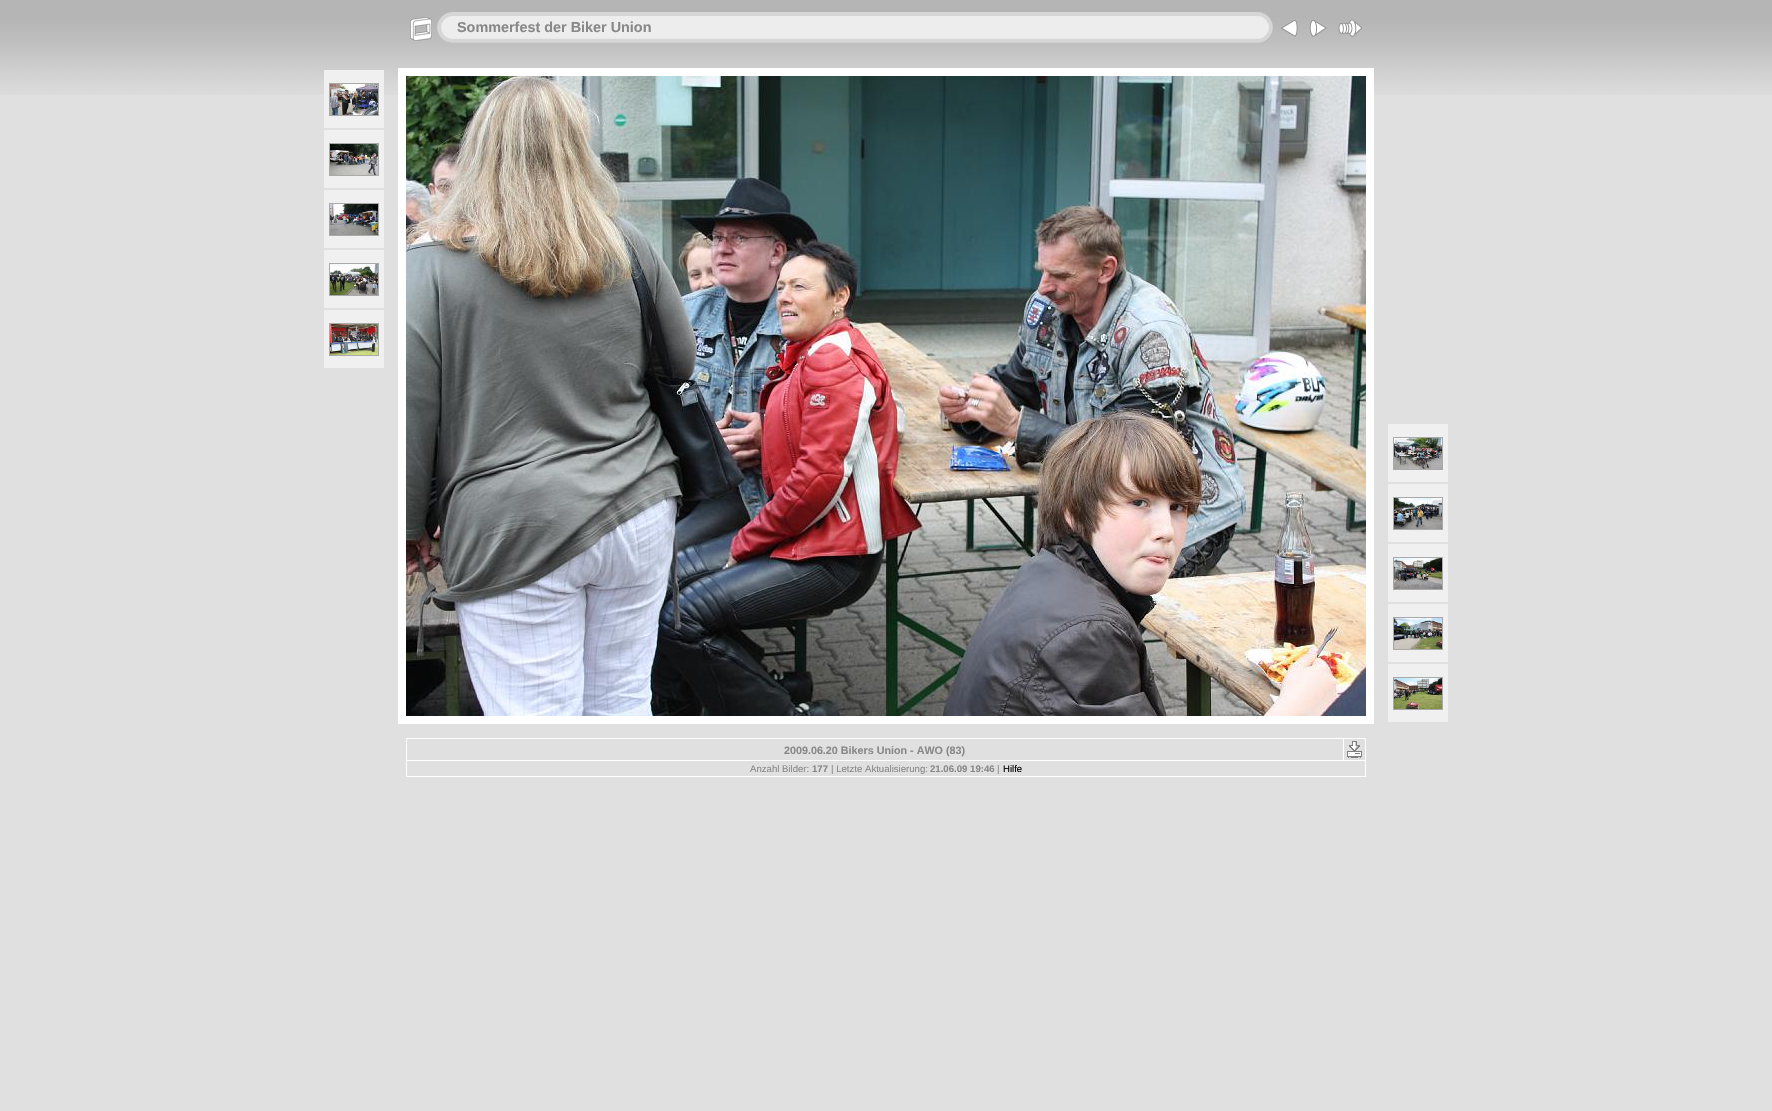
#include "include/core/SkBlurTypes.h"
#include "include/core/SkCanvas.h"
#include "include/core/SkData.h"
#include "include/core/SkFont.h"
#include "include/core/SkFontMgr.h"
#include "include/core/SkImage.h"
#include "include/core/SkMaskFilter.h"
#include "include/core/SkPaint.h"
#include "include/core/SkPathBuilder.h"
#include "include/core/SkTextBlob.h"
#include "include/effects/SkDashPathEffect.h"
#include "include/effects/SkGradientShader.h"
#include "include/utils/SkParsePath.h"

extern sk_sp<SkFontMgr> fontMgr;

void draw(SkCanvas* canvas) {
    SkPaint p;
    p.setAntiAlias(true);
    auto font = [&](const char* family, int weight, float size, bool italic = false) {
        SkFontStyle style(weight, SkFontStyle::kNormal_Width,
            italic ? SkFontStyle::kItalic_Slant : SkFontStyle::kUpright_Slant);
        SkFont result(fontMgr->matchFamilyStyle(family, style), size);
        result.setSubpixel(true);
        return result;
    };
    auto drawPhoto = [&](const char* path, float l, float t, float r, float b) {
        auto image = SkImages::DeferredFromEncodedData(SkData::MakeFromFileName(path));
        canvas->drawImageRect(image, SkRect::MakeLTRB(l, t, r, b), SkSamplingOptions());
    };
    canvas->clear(0xFFE0E0E0);
    drawPhoto("media/1.png", 0, 0, 1772, 95);
    drawPhoto("media/2.png", 410, 17, 432, 41);
    drawPhoto("media/3.png", 437, 12, 457, 43);
    drawPhoto("media/4.png", 457, 12, 1253, 43);
    auto font1 = font("Liberation Sans", 700, 14.4f);
    p.setColor(0xFF888888);
    canvas->drawString("Sommerfest der Biker Union", 457, 32, font1, p);
    drawPhoto("media/5.png", 1253, 12, 1273, 43);
    drawPhoto("media/6.png", 1281, 20, 1298, 37);
    drawPhoto("media/7.png", 1309, 20, 1327, 37);
    drawPhoto("media/8.png", 1338, 19, 1362, 37);
    p.setColor(0xFFF0F0F0);
    canvas->drawRect(SkRect::MakeLTRB(324, 70, 384, 128), p);
    p.setStyle(SkPaint::kStroke_Style);
    p.setStrokeWidth(1);
    p.setColor(0xFFAAAAAA);
    canvas->drawRect(SkRect::MakeLTRB(329.5f, 83.5f, 378.5f, 115.5f), p);
    drawPhoto("media/9.png", 330, 84, 378, 115);
    p.setStyle(SkPaint::kFill_Style);
    p.setColor(0xFFF0F0F0);
    canvas->drawRect(SkRect::MakeLTRB(324, 130, 384, 188), p);
    p.setStyle(SkPaint::kStroke_Style);
    p.setColor(0xFFAAAAAA);
    canvas->drawRect(SkRect::MakeLTRB(329.5f, 143.5f, 378.5f, 175.5f), p);
    drawPhoto("media/10.png", 330, 144, 378, 175);
    p.setStyle(SkPaint::kFill_Style);
    p.setColor(0xFFF0F0F0);
    canvas->drawRect(SkRect::MakeLTRB(324, 190, 384, 248), p);
    p.setStyle(SkPaint::kStroke_Style);
    p.setColor(0xFFAAAAAA);
    canvas->drawRect(SkRect::MakeLTRB(329.5f, 203.5f, 378.5f, 235.5f), p);
    drawPhoto("media/11.png", 330, 204, 378, 235);
    p.setStyle(SkPaint::kFill_Style);
    p.setColor(0xFFF0F0F0);
    canvas->drawRect(SkRect::MakeLTRB(324, 250, 384, 308), p);
    p.setStyle(SkPaint::kStroke_Style);
    p.setColor(0xFFAAAAAA);
    canvas->drawRect(SkRect::MakeLTRB(329.5f, 263.5f, 378.5f, 295.5f), p);
    drawPhoto("media/12.png", 330, 264, 378, 295);
    p.setStyle(SkPaint::kFill_Style);
    p.setColor(0xFFF0F0F0);
    canvas->drawRect(SkRect::MakeLTRB(324, 310, 384, 368), p);
    p.setStyle(SkPaint::kStroke_Style);
    p.setColor(0xFFAAAAAA);
    canvas->drawRect(SkRect::MakeLTRB(329.5f, 323.5f, 378.5f, 355.5f), p);
    drawPhoto("media/13.png", 330, 324, 378, 355);
    p.setStrokeWidth(8);
    p.setColor(0xFFFFFFFF);
    canvas->drawRect(SkRect::MakeLTRB(402, 72, 1370, 720), p);
    drawPhoto("media/14.png", 406, 76, 1366, 716);
    p.setStyle(SkPaint::kFill_Style);
    p.setColor(0xFFF0F0F0);
    canvas->drawRect(SkRect::MakeLTRB(1388, 424, 1448, 482), p);
    p.setStyle(SkPaint::kStroke_Style);
    p.setStrokeWidth(1);
    p.setColor(0xFFAAAAAA);
    canvas->drawRect(SkRect::MakeLTRB(1393.5f, 437.5f, 1442.5f, 469.5f), p);
    drawPhoto("media/15.png", 1394, 438, 1442, 469);
    p.setStyle(SkPaint::kFill_Style);
    p.setColor(0xFFF0F0F0);
    canvas->drawRect(SkRect::MakeLTRB(1388, 484, 1448, 542), p);
    p.setStyle(SkPaint::kStroke_Style);
    p.setColor(0xFFAAAAAA);
    canvas->drawRect(SkRect::MakeLTRB(1393.5f, 497.5f, 1442.5f, 529.5f), p);
    drawPhoto("media/16.png", 1394, 498, 1442, 529);
    p.setStyle(SkPaint::kFill_Style);
    p.setColor(0xFFF0F0F0);
    canvas->drawRect(SkRect::MakeLTRB(1388, 544, 1448, 602), p);
    p.setStyle(SkPaint::kStroke_Style);
    p.setColor(0xFFAAAAAA);
    canvas->drawRect(SkRect::MakeLTRB(1393.5f, 557.5f, 1442.5f, 589.5f), p);
    drawPhoto("media/17.png", 1394, 558, 1442, 589);
    p.setStyle(SkPaint::kFill_Style);
    p.setColor(0xFFF0F0F0);
    canvas->drawRect(SkRect::MakeLTRB(1388, 604, 1448, 662), p);
    p.setStyle(SkPaint::kStroke_Style);
    p.setColor(0xFFAAAAAA);
    canvas->drawRect(SkRect::MakeLTRB(1393.5f, 617.5f, 1442.5f, 649.5f), p);
    drawPhoto("media/18.png", 1394, 618, 1442, 649);
    p.setStyle(SkPaint::kFill_Style);
    p.setColor(0xFFF0F0F0);
    canvas->drawRect(SkRect::MakeLTRB(1388, 664, 1448, 722), p);
    p.setStyle(SkPaint::kStroke_Style);
    p.setColor(0xFFAAAAAA);
    canvas->drawRect(SkRect::MakeLTRB(1393.5f, 677.5f, 1442.5f, 709.5f), p);
    drawPhoto("media/19.png", 1394, 678, 1442, 709);
    p.setStyle(SkPaint::kFill_Style);
    {
        const struct { float l, t, r, b; SkColor color; } items[] = {
            {406, 738, 1366, 739, 0xFFFFFFFF},
            {1365, 738, 1366, 777, 0xFFFFFFFF},
            {406, 776, 1366, 777, 0xFFFFFFFF},
            {406, 738, 407, 777, 0xFFFFFFFF},
        };
        for (auto [l, t, r, b, color] : items) {
            p.setColor(color);
            canvas->drawRect(SkRect::MakeLTRB(l, t, r, b), p);
        }
    }
    auto font2 = font("Liberation Sans", 700, 10.75f);
    p.setColor(0xFF888888);
    canvas->drawString("2009.06.20 Bikers Union - AWO (83)", 784, 754, font2, p);
    p.setColor(0xFFFFFFFF);
    canvas->drawRect(SkRect::MakeLTRB(406, 760, 1366, 761), p);
    canvas->drawRect(SkRect::MakeLTRB(1343, 738, 1344, 761), p);
    drawPhoto("media/20.png", 1347, 741, 1362, 758);
    auto font3 = font("Liberation Sans", 400, 9.6f);
    p.setColor(0xFF888888);
    canvas->drawString("Anzahl Bilder:", 750, 772, font3, p);
    auto font4 = font("Liberation Sans", 700, 9.6f);
    canvas->drawString("177", 812, 772, font4, p);
    canvas->drawString("| Letzte Aktualisierung:", 831, 772, font3, p);
    canvas->drawString("21.06.09 19:46", 930, 772, font4, p);
    canvas->drawString("|", 997, 772, font3, p);
    p.setColor(0xFF000000);
    canvas->drawString("Hilfe", 1003, 772, font3, p);
}
